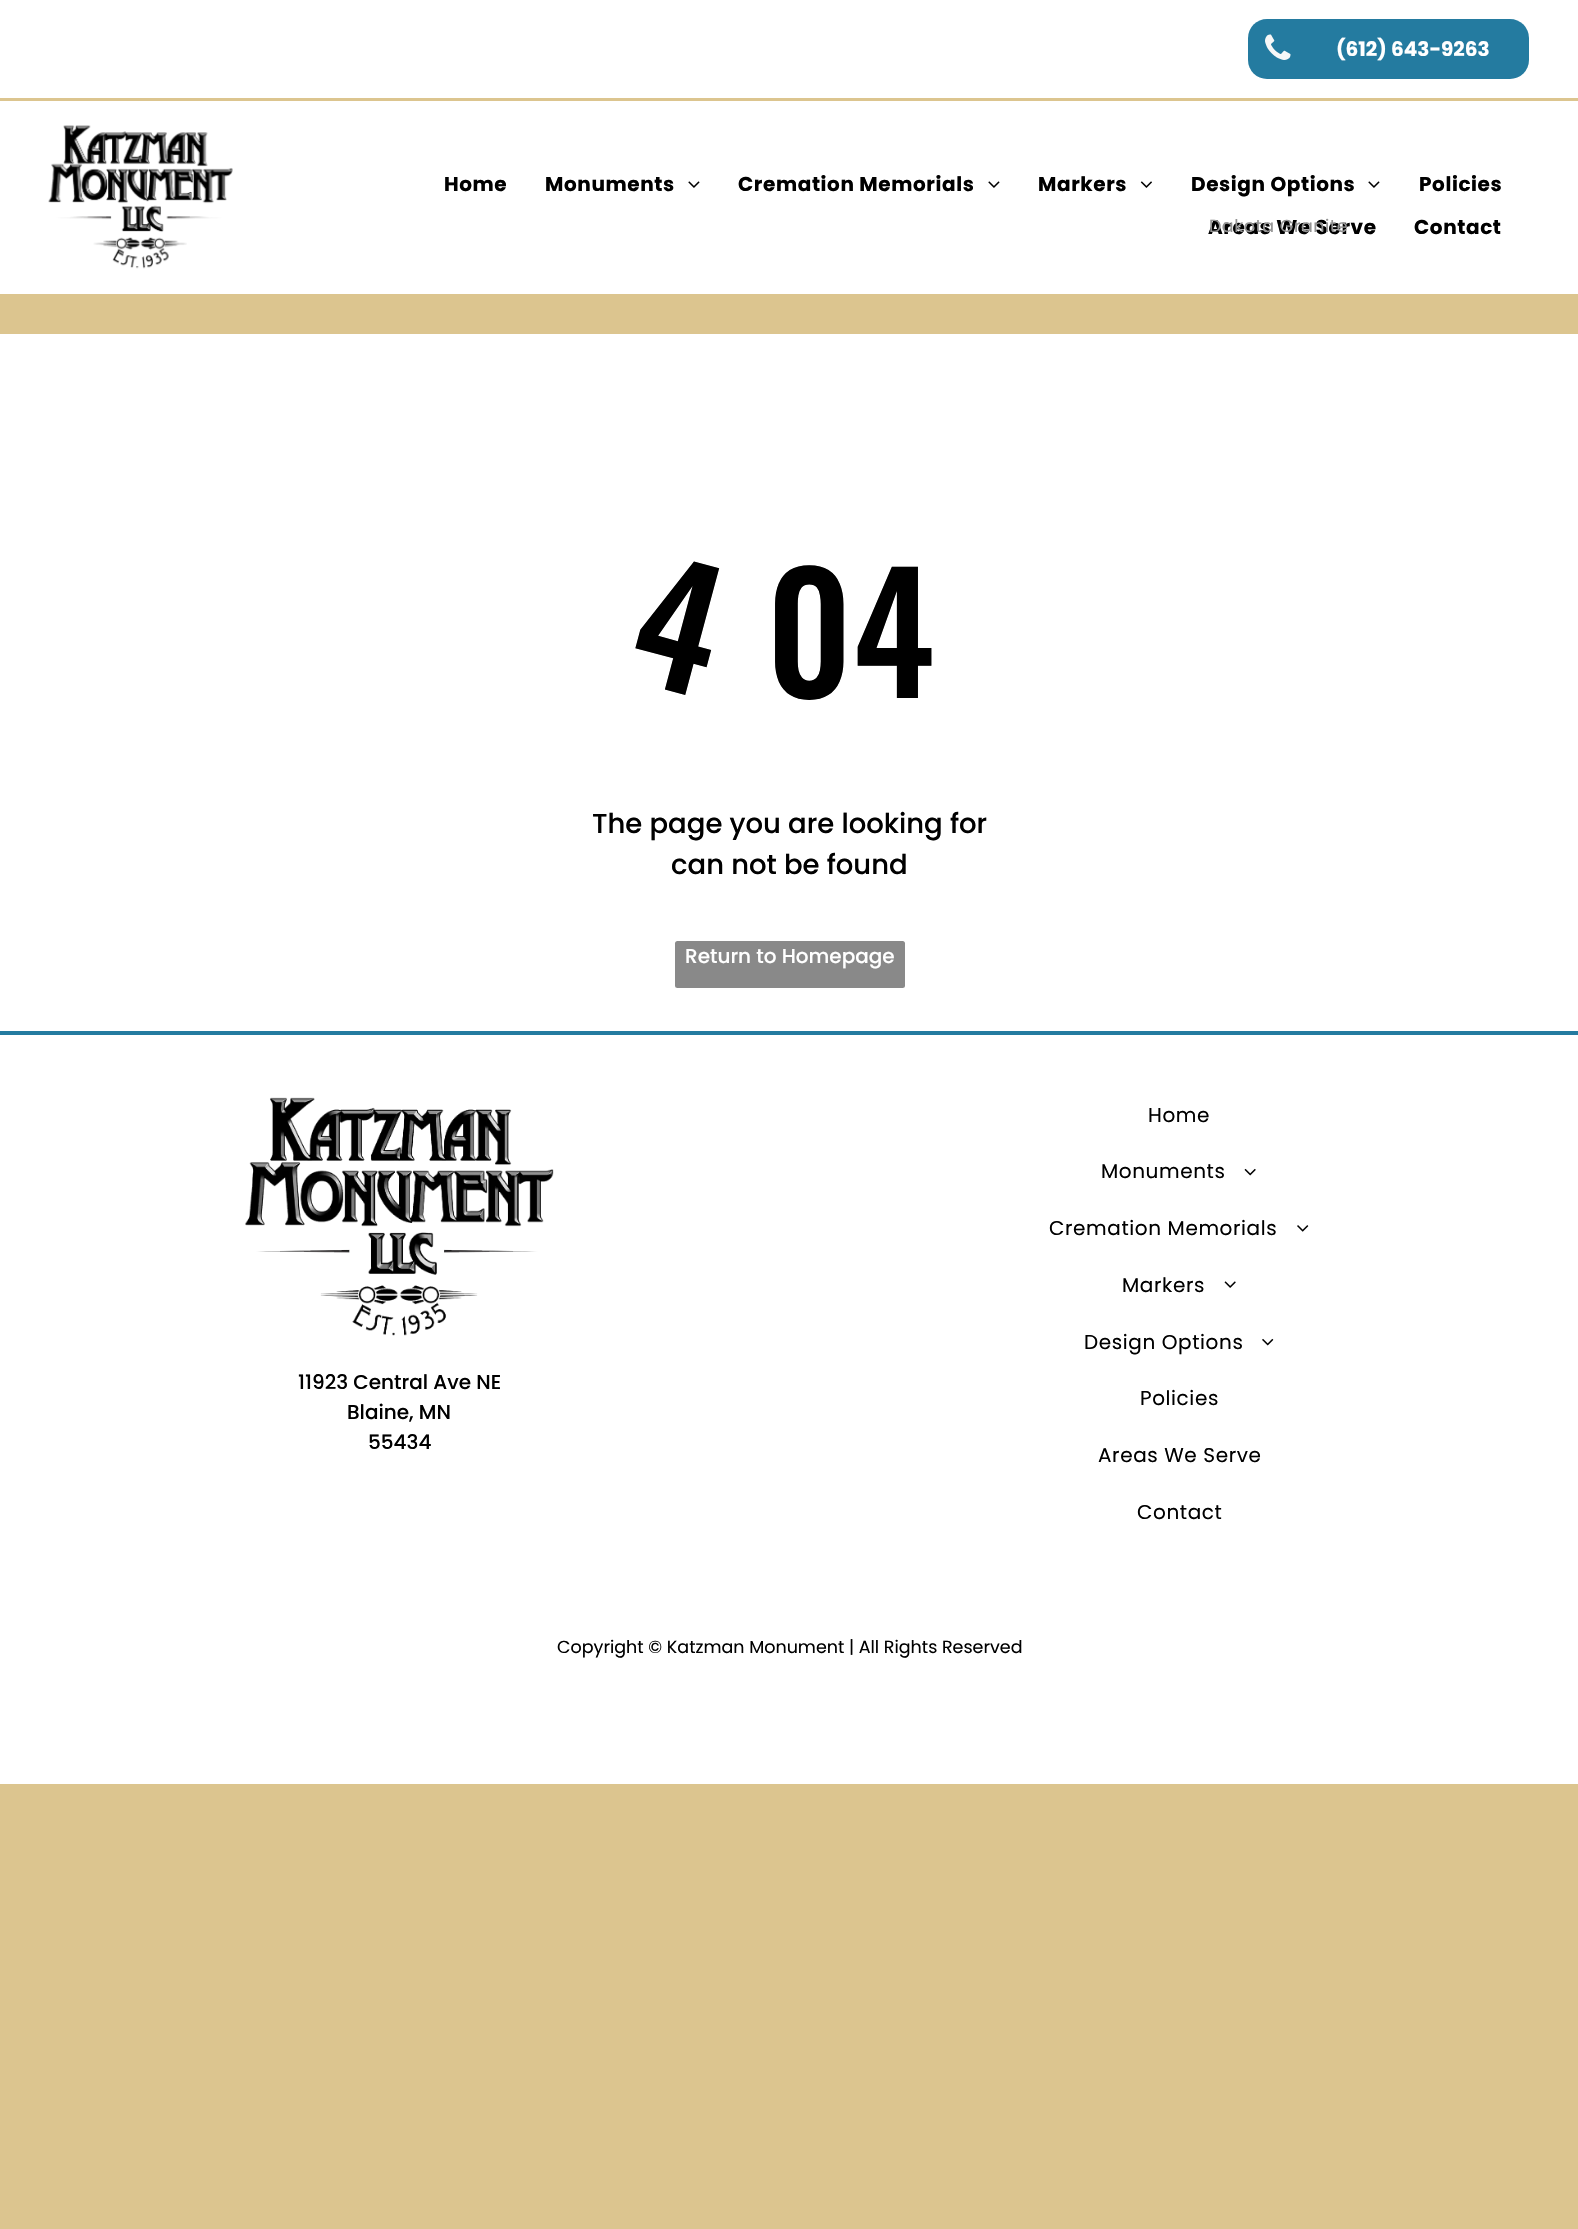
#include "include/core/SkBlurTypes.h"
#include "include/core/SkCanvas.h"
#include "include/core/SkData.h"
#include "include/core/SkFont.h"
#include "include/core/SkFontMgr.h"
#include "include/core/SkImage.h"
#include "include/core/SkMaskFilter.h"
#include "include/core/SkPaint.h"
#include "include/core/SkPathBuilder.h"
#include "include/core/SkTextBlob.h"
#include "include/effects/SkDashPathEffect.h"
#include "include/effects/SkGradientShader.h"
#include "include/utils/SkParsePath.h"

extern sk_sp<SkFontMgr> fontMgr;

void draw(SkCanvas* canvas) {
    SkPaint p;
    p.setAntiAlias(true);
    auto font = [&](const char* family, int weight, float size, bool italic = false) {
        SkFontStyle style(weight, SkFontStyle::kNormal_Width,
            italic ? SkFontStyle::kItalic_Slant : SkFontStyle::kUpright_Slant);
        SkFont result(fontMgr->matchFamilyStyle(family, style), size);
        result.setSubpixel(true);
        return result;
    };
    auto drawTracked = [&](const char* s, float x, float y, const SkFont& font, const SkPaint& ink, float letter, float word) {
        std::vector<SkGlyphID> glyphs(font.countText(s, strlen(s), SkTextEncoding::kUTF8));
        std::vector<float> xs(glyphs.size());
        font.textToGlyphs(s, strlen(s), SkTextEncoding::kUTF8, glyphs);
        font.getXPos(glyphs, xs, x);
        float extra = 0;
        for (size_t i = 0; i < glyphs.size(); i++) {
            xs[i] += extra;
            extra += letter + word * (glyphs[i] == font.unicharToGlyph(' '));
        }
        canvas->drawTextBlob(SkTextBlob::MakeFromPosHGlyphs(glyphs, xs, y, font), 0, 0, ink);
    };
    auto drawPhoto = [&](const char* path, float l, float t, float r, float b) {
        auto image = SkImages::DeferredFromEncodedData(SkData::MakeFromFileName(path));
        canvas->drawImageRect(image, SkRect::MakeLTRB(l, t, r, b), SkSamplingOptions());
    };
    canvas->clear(0xFFDCC58F);
    p.setColor(0xFFFFFFFF);
    canvas->drawRect(SkRect::MakeLTRB(0, 0, 1578, 294), p);
    p.setColor(0xFFDCC58F);
    canvas->drawRect(SkRect::MakeLTRB(0, 98, 1578, 101), p);
    p.setColor(0xFF247BA0);
    canvas->drawRoundRect(SkRect::MakeLTRB(1248, 19, 1529, 79), 19, 19, p);
    drawPhoto("media/1.png", 1265, 34, 1291, 60);
    auto font1 = font("Poppins", 700, 20);
    p.setColor(0xFFFFFFFF);
    canvas->drawString("(612) 643-9263", 1336, 56, font1, p);
    drawPhoto("media/2.png", 48, 125, 233, 269);
    p.setColor(0xFF000000);
    drawTracked("Home", 444, 191, font1, p, 0.6f, 0);
    drawTracked("Monuments", 545, 191, font1, p, 0.6f, 0);
    drawPhoto("media/3.png", 688, 181, 700, 188);
    drawTracked("Cremation Memorials", 738, 191, font1, p, 0.6f, 0);
    drawPhoto("media/3.png", 988, 181, 1000, 188);
    drawTracked("Markers", 1038, 191, font1, p, 0.6f, 0);
    drawPhoto("media/4.png", 1140, 181, 1152, 188);
    drawTracked("Design Options", 1191, 191, font1, p, 0.6f, 0);
    drawPhoto("media/3.png", 1368, 181, 1380, 188);
    drawTracked("Areas We Serve", 1208, 234, font1, p, 0.6f, 0);
    auto font2 = font("Poppins", 400, 17.5f);
    p.setColor(0xFF939393);
    drawTracked("Dakota Granite", 1209, 232, font2, p, 0.5f, 0);
    p.setColor(0xFF000000);
    drawTracked("Policies", 1419, 191, font1, p, 0.6f, 0);
    drawTracked("Contact", 1414, 234, font1, p, 0.6f, 0);
    p.setColor(0xFFFFFFFF);
    canvas->drawRect(SkRect::MakeLTRB(0, 334, 1578, 1031), p);
    auto font3 = font("Oswald", 500, 162);
    p.setColor(0xFF000000);
    canvas->save();
    canvas->rotate(15, 622, 678);
    canvas->drawString("4", 622, 678, font3, p);
    canvas->restore();
    canvas->drawString("04", 766, 698, font3, p);
    auto font4 = font("Poppins", 500, 27.5f);
    canvas->drawString("The page you are looking for", 592, 833, font4, p);
    canvas->drawString("can not be found", 671, 874, font4, p);
    p.setColor(0xFF898989);
    canvas->drawRoundRect(SkRect::MakeLTRB(675, 941, 905, 988), 2.5f, 2.5f, p);
    auto font5 = font("Poppins", 500, 20);
    p.setColor(0xFFFFFFFF);
    canvas->drawString("Return to Homepage", 685, 963, font5, p);
    canvas->drawRect(SkRect::MakeLTRB(0, 1035, 1578, 1784), p);
    p.setColor(0xFF247BA0);
    canvas->drawRect(SkRect::MakeLTRB(0, 1031, 1578, 1035), p);
    drawPhoto("media/5.png", 245, 1097, 554, 1336);
    p.setColor(0xFF000000);
    {
        const struct { const char* s; float x, y; } items[] = {
            {"11923 Central Ave NE", 298, 1389},
            {"Blaine, MN", 347, 1419},
            {"55434", 368, 1449},
        };
        for (auto [s, x, y] : items) {
            canvas->drawString(s, x, y, font5, p);
        }
    }
    auto font6 = font("Poppins", 400, 20);
    drawTracked("Home", 1148, 1122, font6, p, 0.6f, 0);
    drawTracked("Monuments", 1101, 1178, font6, p, 0.6f, 0);
    drawPhoto("media/6.png", 1244, 1168, 1256, 1176);
    drawTracked("Cremation Memorials", 1049, 1235, font6, p, 0.6f, 0);
    drawPhoto("media/7.png", 1297, 1225, 1309, 1232);
    drawTracked("Markers", 1122, 1292, font6, p, 0.6f, 0);
    drawPhoto("media/8.png", 1224, 1281, 1236, 1288);
    drawTracked("Design Options", 1084, 1349, font6, p, 0.6f, 0);
    drawPhoto("media/9.png", 1262, 1338, 1274, 1346);
    {
        const struct { const char* s; float x, y; } items[] = {
            {"Policies", 1140, 1405},
            {"Areas We Serve", 1098, 1462},
            {"Contact", 1137, 1519},
        };
        for (auto [s, x, y] : items) {
            drawTracked(s, x, y, font6, p, 0.6f, 0);
        }
    }
    canvas->drawString("Copyright © Katzman Monument | All Rights Reserved", 557, 1653, font2, p);
}
